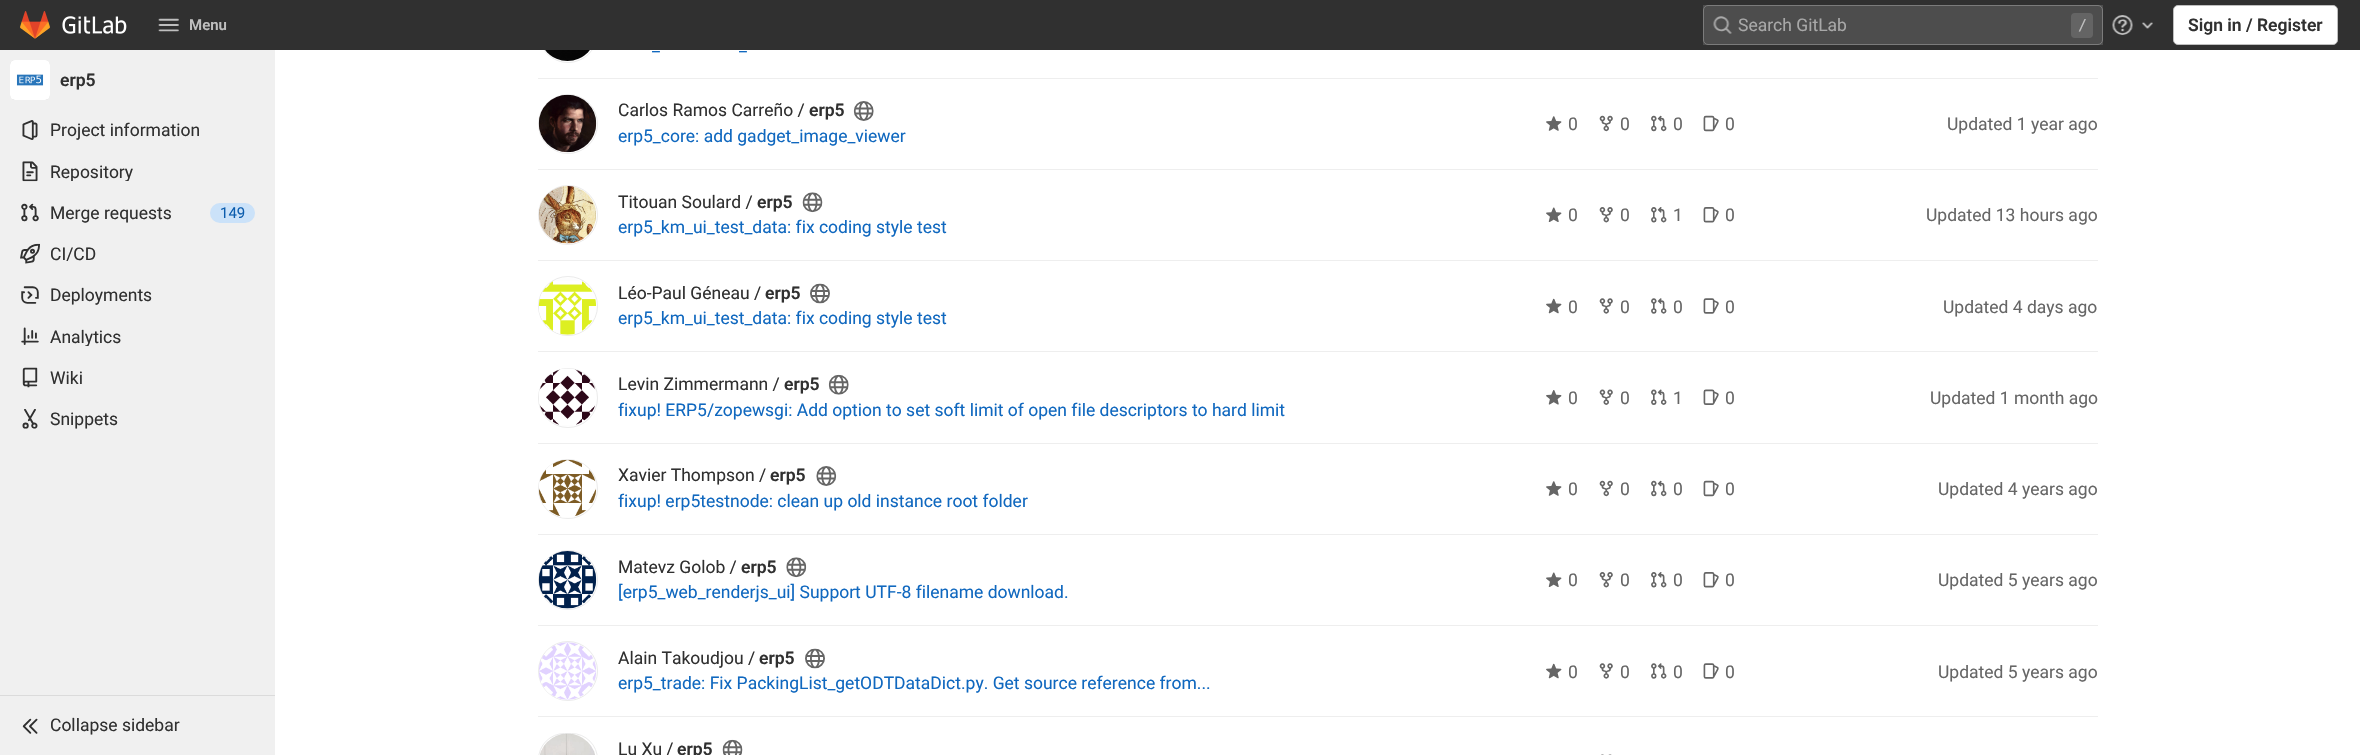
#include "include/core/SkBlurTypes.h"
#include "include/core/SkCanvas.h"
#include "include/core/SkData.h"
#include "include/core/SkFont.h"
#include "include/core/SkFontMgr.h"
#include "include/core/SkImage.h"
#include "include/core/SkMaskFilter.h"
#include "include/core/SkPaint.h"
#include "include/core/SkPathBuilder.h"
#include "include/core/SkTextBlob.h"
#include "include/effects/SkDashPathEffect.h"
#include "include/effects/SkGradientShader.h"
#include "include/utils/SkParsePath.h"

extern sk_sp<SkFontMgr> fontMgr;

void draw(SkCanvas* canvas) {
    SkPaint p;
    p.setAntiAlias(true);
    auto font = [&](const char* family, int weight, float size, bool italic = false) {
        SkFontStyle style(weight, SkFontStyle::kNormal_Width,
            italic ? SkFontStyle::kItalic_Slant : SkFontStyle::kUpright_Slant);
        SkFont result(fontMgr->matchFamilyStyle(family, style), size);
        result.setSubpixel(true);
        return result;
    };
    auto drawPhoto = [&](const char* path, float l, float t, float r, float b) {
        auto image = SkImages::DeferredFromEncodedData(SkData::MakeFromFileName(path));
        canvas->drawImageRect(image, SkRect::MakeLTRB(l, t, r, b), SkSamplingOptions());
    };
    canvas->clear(0xFFFFFFFF);
    p.setStyle(SkPaint::kStroke_Style);
    p.setStrokeWidth(1);
    p.setColor(0xFFEBEBEB);
    canvas->drawCircle(568, 33, 29.5f, p);
    p.setStyle(SkPaint::kFill_Style);
    p.setColor(0xFFFDFDFD);
    canvas->drawCircle(567.5f, 32.5f, 28.5f, p);
    p.setColor(0xFF303030);
    canvas->drawRect(SkRect::MakeLTRB(0, 0, 2360, 50), p);
    drawPhoto("media/1.png", 20, 11, 50, 39);
    drawPhoto("media/2.png", 62, 16, 127, 34);
    drawPhoto("media/3.png", 158, 18, 179, 32);
    auto font1 = font("Roboto", 600, 15);
    p.setColor(0xFFBFBFBF);
    canvas->drawString("Menu", 189, 30, font1, p);
    p.setColor(0xFF4D4D4D);
    canvas->drawRect(SkRect::MakeLTRB(1703, 5, 2103, 45), p);
    p.setStyle(SkPaint::kStroke_Style);
    p.setColor(0xFF7B7B7B);
    canvas->drawRoundRect(SkRect::MakeLTRB(1703.5f, 5.5f, 2102.5f, 44.5f), 4.5f, 4.5f, p);
    drawPhoto("media/4.png", 1713, 16, 1732, 34);
    auto font2 = font("Roboto", 400, 17.5f);
    p.setStyle(SkPaint::kFill_Style);
    p.setColor(0xFFA8A8A8);
    canvas->drawString("Search GitLab", 1738, 31, font2, p);
    p.setColor(0xFF646464);
    canvas->drawRoundRect(SkRect::MakeLTRB(2071, 13, 2093, 38), 4, 4, p);
    auto font3 = font("DejaVu Sans Mono", 400, 15);
    p.setColor(0xFFBFBFBF);
    canvas->drawString("/", 2078, 30, font3, p);
    drawPhoto("media/5.png", 2112, 15, 2133, 35);
    drawPhoto("media/6.png", 2142, 22, 2153, 29);
    p.setColor(0xFFFFFFFF);
    canvas->drawRoundRect(SkRect::MakeLTRB(2173.5f, 5.5f, 2337.5f, 44.5f), 4.5f, 4.5f, p);
    p.setStyle(SkPaint::kStroke_Style);
    p.setColor(0xFFBFBFBF);
    canvas->drawRoundRect(SkRect::MakeLTRB(2173.5f, 5.5f, 2337.5f, 44.5f), 4.5f, 4.5f, p);
    auto font4 = font("Roboto", 600, 17.5f);
    p.setStyle(SkPaint::kFill_Style);
    p.setColor(0xFF303030);
    canvas->drawString("Sign in / Register", 2188, 31, font4, p);
    p.setColor(0xFFF0F0F0);
    canvas->drawRect(SkRect::MakeLTRB(0, 50, 275, 755), p);
    p.setStyle(SkPaint::kStroke_Style);
    p.setColor(0x14000000);
    canvas->drawRoundRect(SkRect::MakeLTRB(10.5f, 60.5f, 49.5f, 99.5f), 4.5f, 4.5f, p);
    p.setStyle(SkPaint::kFill_Style);
    p.setColor(0xFFFDFDFD);
    canvas->drawRoundRect(SkRect::MakeLTRB(10, 60, 50, 100), 5, 5, p);
    p.setStyle(SkPaint::kStroke_Style);
    p.setColor(0x14000000);
    canvas->drawRoundRect(SkRect::MakeLTRB(10.5f, 60.5f, 49.5f, 99.5f), 4.5f, 4.5f, p);
    drawPhoto("media/7.png", 10, 60, 50, 100);
    p.setStyle(SkPaint::kFill_Style);
    p.setColor(0xFF303030);
    canvas->drawString("erp5", 60, 86, font4, p);
    drawPhoto("media/8.png", 22, 120, 38, 140);
    canvas->drawString("Project information", 50, 136, font2, p);
    drawPhoto("media/9.png", 22, 161, 38, 182);
    canvas->save();
    canvas->clipRect(SkRect::MakeLTRB(50, 161, 255, 181));
    canvas->drawString("Repository", 50, 178, font2, p);
    canvas->restore();
    drawPhoto("media/10.png", 21, 203, 39, 222);
    canvas->drawString("Merge requests", 50, 219, font2, p);
    p.setColor(0xFFCBE2F9);
    canvas->drawRoundRect(SkRect::MakeLTRB(210, 203, 255, 223), 10, 10, p);
    auto font5 = font("Roboto", 400, 15);
    p.setColor(0xFF0B5CAD);
    canvas->drawString("149", 220, 218, font5, p);
    drawPhoto("media/11.png", 20, 243, 40, 264);
    p.setColor(0xFF303030);
    canvas->drawString("CI/CD", 50, 260, font2, p);
    drawPhoto("media/12.png", 21, 286, 39, 304);
    canvas->drawString("Deployments", 50, 301, font2, p);
    drawPhoto("media/13.png", 21, 327, 39, 345);
    canvas->save();
    canvas->clipRect(SkRect::MakeLTRB(50, 326, 255, 346));
    canvas->drawString("Analytics", 50, 343, font2, p);
    canvas->restore();
    drawPhoto("media/14.png", 22, 367, 38, 388);
    canvas->drawString("Wiki", 50, 384, font2, p);
    drawPhoto("media/15.png", 22, 409, 38, 429);
    canvas->drawString("Snippets", 50, 425, font2, p);
    p.setColor(0xFFDBDBDB);
    canvas->drawRect(SkRect::MakeLTRB(0, 695, 275, 696), p);
    drawPhoto("media/16.png", 22, 718, 38, 734);
    p.setColor(0xFF303030);
    canvas->drawString("Collapse sidebar", 50, 731, font2, p);
    p.setColor(0xFFEEEEEE);
    canvas->drawRect(SkRect::MakeLTRB(538, 78, 2098, 79), p);
    drawPhoto("media/17.png", 545, 50, 590, 61);
    p.setColor(0xFF1068BF);
    canvas->drawString("_", 652, 51, font2, p);
    canvas->drawString("_", 739, 51, font2, p);
    p.setColor(0xFFEEEEEE);
    canvas->drawRect(SkRect::MakeLTRB(538, 169, 2098, 170), p);
    p.setStyle(SkPaint::kStroke_Style);
    p.setColor(0xFFEBEBEB);
    canvas->drawCircle(568, 124, 29.5f, p);
    p.setStyle(SkPaint::kFill_Style);
    p.setColor(0xFFFDFDFD);
    canvas->drawRoundRect(SkRect::MakeLTRB(539, 95, 596, 153), 28.5f, 28.5f, p);
    drawPhoto("media/18.png", 538, 94, 597, 153);
    p.setColor(0xFF303030);
    canvas->drawString("Carlos Ramos Carreño /", 618, 116, font2, p);
    canvas->drawString("erp5", 809, 116, font4, p);
    drawPhoto("media/19.png", 853, 101, 874, 121);
    p.setColor(0xFF1068BF);
    canvas->drawString("erp5_core: add gadget_image_viewer", 618, 142, font2, p);
    drawPhoto("media/20.png", 1546, 116, 1562, 131);
    p.setColor(0xFF666666);
    canvas->drawString("0", 1568, 130, font2, p);
    drawPhoto("media/21.png", 1599, 115, 1613, 132);
    canvas->drawString("0", 1620, 130, font2, p);
    drawPhoto("media/22.png", 1651, 115, 1667, 132);
    canvas->drawString("0", 1673, 130, font2, p);
    drawPhoto("media/23.png", 1703, 115, 1719, 132);
    canvas->drawString("0", 1725, 130, font2, p);
    canvas->drawString("Updated 1 year ago", 1947, 130, font2, p);
    p.setColor(0xFFEEEEEE);
    canvas->drawRect(SkRect::MakeLTRB(538, 260, 2098, 261), p);
    p.setStyle(SkPaint::kStroke_Style);
    p.setColor(0xFFEBEBEB);
    canvas->drawCircle(568, 215, 29.5f, p);
    p.setStyle(SkPaint::kFill_Style);
    p.setColor(0xFFFDFDFD);
    canvas->drawRoundRect(SkRect::MakeLTRB(539, 186, 596, 244), 28.5f, 28.5f, p);
    drawPhoto("media/24.png", 538, 186, 596, 244);
    p.setColor(0xFF303030);
    canvas->drawString("Titouan Soulard /", 618, 208, font2, p);
    canvas->drawString("erp5", 757, 208, font4, p);
    drawPhoto("media/25.png", 802, 192, 823, 213);
    p.setColor(0xFF1068BF);
    canvas->drawString("erp5_km_ui_test_data: fix coding style test", 618, 233, font2, p);
    drawPhoto("media/26.png", 1546, 207, 1562, 222);
    p.setColor(0xFF666666);
    canvas->drawString("0", 1568, 221, font2, p);
    drawPhoto("media/27.png", 1599, 207, 1613, 223);
    canvas->drawString("0", 1620, 221, font2, p);
    drawPhoto("media/28.png", 1651, 207, 1667, 223);
    canvas->drawString("1", 1673, 221, font2, p);
    drawPhoto("media/29.png", 1703, 207, 1719, 223);
    canvas->drawString("0", 1725, 221, font2, p);
    canvas->drawString("Updated 13 hours ago", 1926, 221, font2, p);
    p.setColor(0xFFEEEEEE);
    canvas->drawRect(SkRect::MakeLTRB(538, 351, 2098, 352), p);
    p.setStyle(SkPaint::kStroke_Style);
    p.setColor(0xFFEBEBEB);
    canvas->drawCircle(568, 306, 29.5f, p);
    p.setStyle(SkPaint::kFill_Style);
    p.setColor(0xFFFDFDFD);
    canvas->drawCircle(567.5f, 306.5f, 28.5f, p);
    drawPhoto("media/30.png", 538, 281, 597, 335);
    p.setColor(0xFF303030);
    canvas->drawString("Léo-Paul Géneau /", 618, 299, font2, p);
    canvas->drawString("erp5", 765, 299, font4, p);
    drawPhoto("media/31.png", 810, 283, 830, 304);
    p.setColor(0xFF1068BF);
    canvas->drawString("erp5_km_ui_test_data: fix coding style test", 618, 324, font2, p);
    drawPhoto("media/32.png", 1546, 298, 1562, 314);
    p.setColor(0xFF666666);
    canvas->drawString("0", 1568, 313, font2, p);
    drawPhoto("media/33.png", 1599, 298, 1613, 314);
    canvas->drawString("0", 1620, 313, font2, p);
    drawPhoto("media/34.png", 1651, 298, 1667, 314);
    canvas->drawString("0", 1673, 313, font2, p);
    drawPhoto("media/35.png", 1703, 298, 1719, 314);
    canvas->drawString("0", 1725, 313, font2, p);
    canvas->drawString("Updated 4 days ago", 1943, 313, font2, p);
    p.setColor(0xFFEEEEEE);
    canvas->drawRect(SkRect::MakeLTRB(538, 443, 2098, 444), p);
    p.setStyle(SkPaint::kStroke_Style);
    p.setColor(0xFFEBEBEB);
    canvas->drawCircle(568, 398, 29.5f, p);
    p.setStyle(SkPaint::kFill_Style);
    p.setColor(0xFFFDFDFD);
    canvas->drawCircle(567.5f, 397.5f, 28.5f, p);
    drawPhoto("media/36.png", 539, 368, 596, 425);
    p.setColor(0xFF303030);
    canvas->drawString("Levin Zimmermann /", 618, 390, font2, p);
    canvas->drawString("erp5", 784, 390, font4, p);
    drawPhoto("media/37.png", 828, 374, 849, 395);
    p.setColor(0xFF1068BF);
    canvas->drawString("fixup! ERP5/zopewsgi: Add option to set soft limit of open file descriptors to hard limit", 618, 416, font2, p);
    drawPhoto("media/38.png", 1546, 390, 1562, 405);
    p.setColor(0xFF666666);
    canvas->drawString("0", 1568, 404, font2, p);
    drawPhoto("media/39.png", 1599, 389, 1613, 405);
    canvas->drawString("0", 1620, 404, font2, p);
    drawPhoto("media/40.png", 1651, 389, 1667, 405);
    canvas->drawString("1", 1673, 404, font2, p);
    drawPhoto("media/41.png", 1703, 389, 1719, 405);
    canvas->drawString("0", 1725, 404, font2, p);
    canvas->drawString("Updated 1 month ago", 1930, 404, font2, p);
    p.setColor(0xFFEEEEEE);
    canvas->drawRect(SkRect::MakeLTRB(538, 534, 2098, 535), p);
    p.setStyle(SkPaint::kStroke_Style);
    p.setColor(0xFFEBEBEB);
    canvas->drawCircle(568, 489, 29.5f, p);
    p.setStyle(SkPaint::kFill_Style);
    p.setColor(0xFFFDFDFD);
    canvas->drawRoundRect(SkRect::MakeLTRB(539, 460, 596, 518), 28.5f, 28.5f, p);
    drawPhoto("media/42.png", 538, 459, 597, 517);
    p.setColor(0xFF303030);
    canvas->drawString("Xavier Thompson /", 618, 481, font2, p);
    canvas->drawString("erp5", 770, 481, font4, p);
    drawPhoto("media/43.png", 816, 466, 837, 486);
    p.setColor(0xFF1068BF);
    canvas->drawString("fixup! erp5testnode: clean up old instance root folder", 618, 507, font2, p);
    drawPhoto("media/20.png", 1546, 481, 1562, 496);
    p.setColor(0xFF666666);
    canvas->drawString("0", 1568, 495, font2, p);
    drawPhoto("media/21.png", 1599, 480, 1613, 497);
    canvas->drawString("0", 1620, 495, font2, p);
    drawPhoto("media/22.png", 1651, 480, 1667, 497);
    canvas->drawString("0", 1673, 495, font2, p);
    drawPhoto("media/23.png", 1703, 480, 1719, 497);
    canvas->drawString("0", 1725, 495, font2, p);
    canvas->drawString("Updated 4 years ago", 1938, 495, font2, p);
    p.setColor(0xFFEEEEEE);
    canvas->drawRect(SkRect::MakeLTRB(538, 625, 2098, 626), p);
    p.setStyle(SkPaint::kStroke_Style);
    p.setColor(0xFFEBEBEB);
    canvas->drawCircle(568, 580, 29.5f, p);
    p.setStyle(SkPaint::kFill_Style);
    p.setColor(0xFFFDFDFD);
    canvas->drawRoundRect(SkRect::MakeLTRB(539, 551, 596, 609), 28.5f, 28.5f, p);
    drawPhoto("media/44.png", 538, 551, 597, 609);
    p.setColor(0xFF303030);
    canvas->drawString("Matevz Golob /", 618, 573, font2, p);
    canvas->drawString("erp5", 741, 573, font4, p);
    drawPhoto("media/45.png", 786, 557, 807, 578);
    p.setColor(0xFF1068BF);
    canvas->drawString("[erp5_web_renderjs_ui] Support UTF-8 filename download.", 618, 598, font2, p);
    drawPhoto("media/26.png", 1546, 572, 1562, 587);
    p.setColor(0xFF666666);
    canvas->drawString("0", 1568, 586, font2, p);
    drawPhoto("media/27.png", 1599, 572, 1613, 588);
    canvas->drawString("0", 1620, 586, font2, p);
    drawPhoto("media/28.png", 1651, 572, 1667, 588);
    canvas->drawString("0", 1673, 586, font2, p);
    drawPhoto("media/29.png", 1703, 572, 1719, 588);
    canvas->drawString("0", 1725, 586, font2, p);
    canvas->drawString("Updated 5 years ago", 1938, 586, font2, p);
    p.setColor(0xFFEEEEEE);
    canvas->drawRect(SkRect::MakeLTRB(538, 716, 2098, 717), p);
    p.setStyle(SkPaint::kStroke_Style);
    p.setColor(0xFFEBEBEB);
    canvas->drawCircle(568, 671, 29.5f, p);
    p.setStyle(SkPaint::kFill_Style);
    p.setColor(0xFFFDFDFD);
    canvas->drawCircle(567.5f, 671.5f, 28.5f, p);
    drawPhoto("media/46.png", 539, 642, 596, 700);
    p.setColor(0xFF303030);
    canvas->drawString("Alain Takoudjou /", 618, 664, font2, p);
    canvas->drawString("erp5", 759, 664, font4, p);
    drawPhoto("media/31.png", 805, 648, 825, 669);
    p.setColor(0xFF1068BF);
    canvas->drawString("erp5_trade: Fix PackingList_getODTDataDict.py. Get source reference from...", 618, 689, font2, p);
    drawPhoto("media/47.png", 1546, 663, 1562, 679);
    p.setColor(0xFF666666);
    canvas->drawString("0", 1568, 678, font2, p);
    drawPhoto("media/48.png", 1599, 663, 1613, 679);
    canvas->drawString("0", 1620, 678, font2, p);
    drawPhoto("media/49.png", 1651, 663, 1667, 679);
    canvas->drawString("0", 1673, 678, font2, p);
    drawPhoto("media/50.png", 1703, 663, 1719, 679);
    canvas->drawString("0", 1725, 678, font2, p);
    canvas->drawString("Updated 5 years ago", 1938, 678, font2, p);
    p.setStyle(SkPaint::kStroke_Style);
    p.setColor(0xFFEBEBEB);
    canvas->drawRoundRect(SkRect::MakeLTRB(538.5f, 733.5f, 597.5f, 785.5f), 29.5f, 29.5f, p);
    drawPhoto("media/51.png", 540, 733, 595, 755);
    p.setStyle(SkPaint::kFill_Style);
    p.setColor(0xFF303030);
    canvas->drawString("Lu Xu /", 618, 755, font2, p);
    canvas->drawString("erp5", 677, 755, font4, p);
    drawPhoto("media/52.png", 722, 739, 743, 755);
    drawPhoto("media/53.png", 1601, 754, 1612, 755);
}
